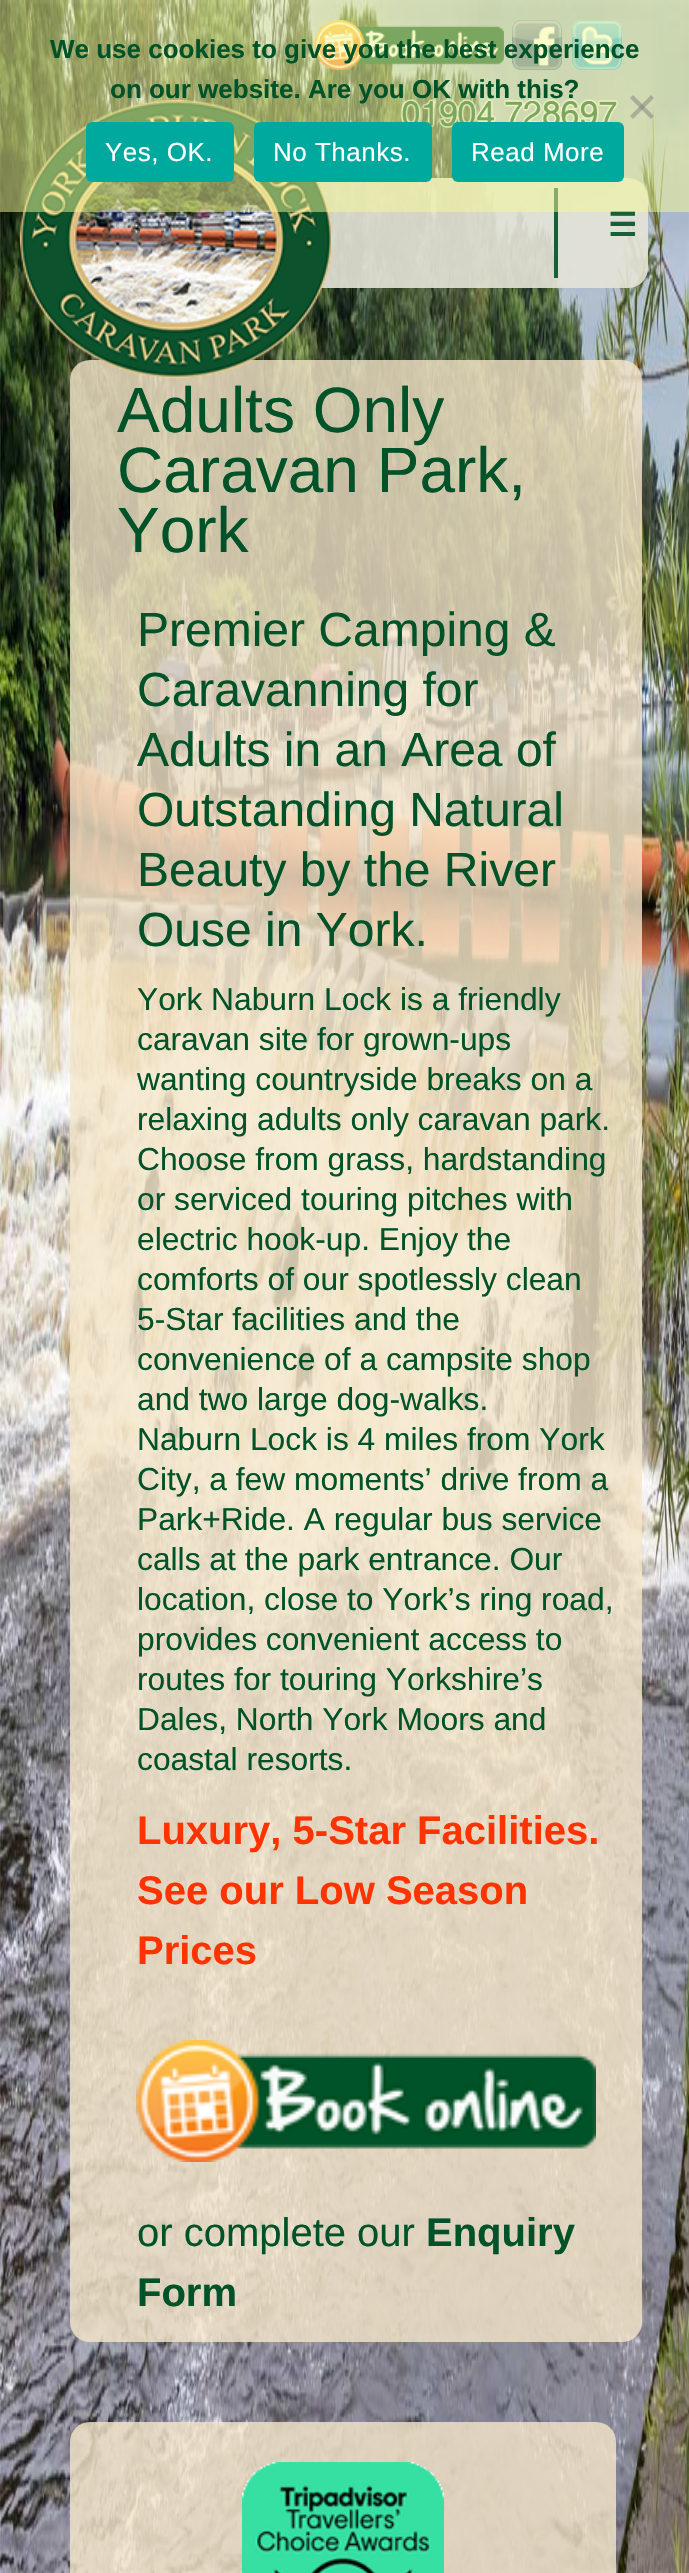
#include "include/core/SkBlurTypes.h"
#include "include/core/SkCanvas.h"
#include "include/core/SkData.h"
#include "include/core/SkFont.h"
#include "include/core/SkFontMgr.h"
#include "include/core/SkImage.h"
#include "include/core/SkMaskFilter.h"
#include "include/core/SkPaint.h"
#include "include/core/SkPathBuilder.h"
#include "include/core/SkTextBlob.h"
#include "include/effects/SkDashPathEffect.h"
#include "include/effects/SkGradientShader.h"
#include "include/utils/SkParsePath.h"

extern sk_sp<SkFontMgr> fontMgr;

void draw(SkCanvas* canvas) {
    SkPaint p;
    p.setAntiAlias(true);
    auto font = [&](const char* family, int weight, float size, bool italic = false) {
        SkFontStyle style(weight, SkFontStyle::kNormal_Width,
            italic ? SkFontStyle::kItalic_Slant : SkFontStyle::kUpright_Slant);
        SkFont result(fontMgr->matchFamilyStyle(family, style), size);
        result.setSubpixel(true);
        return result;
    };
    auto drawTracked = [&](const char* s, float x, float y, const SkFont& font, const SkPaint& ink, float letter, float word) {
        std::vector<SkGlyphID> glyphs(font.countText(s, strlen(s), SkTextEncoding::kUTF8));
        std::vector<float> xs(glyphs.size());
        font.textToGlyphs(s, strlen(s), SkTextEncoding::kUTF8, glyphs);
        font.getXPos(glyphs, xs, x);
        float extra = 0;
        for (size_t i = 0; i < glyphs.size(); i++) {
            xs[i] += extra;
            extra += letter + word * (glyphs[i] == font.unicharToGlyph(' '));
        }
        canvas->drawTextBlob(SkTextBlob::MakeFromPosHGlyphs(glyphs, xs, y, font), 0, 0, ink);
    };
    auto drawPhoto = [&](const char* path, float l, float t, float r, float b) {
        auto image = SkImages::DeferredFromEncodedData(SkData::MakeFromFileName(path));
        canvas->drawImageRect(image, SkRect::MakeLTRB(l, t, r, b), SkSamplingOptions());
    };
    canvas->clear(0xFFFFFFFF);
    drawPhoto("media/1.png", 0, 0, 689, 2573);
    drawPhoto("media/2.png", 314, 20, 504, 70);
    drawPhoto("media/3.png", 512, 20, 562, 70);
    drawPhoto("media/4.png", 572, 20, 622, 70);
    drawPhoto("media/5.png", 400, 99, 618, 129);
    p.setColor(0xE6E4E3D7);
    canvas->drawRoundRect(SkRect::MakeLTRB(110, 178, 648, 288), 20, 20, p);
    p.setColor(0xCCF5E6C9);
    canvas->drawRoundRect(SkRect::MakeLTRB(70, 360, 642, 2342), 20, 20, p);
    drawPhoto("media/6.png", 20, 100, 332, 378);
    p.setColor(0xE6005228);
    canvas->drawRect(SkRect::MakeLTRB(554, 188, 558, 278), p);
    p.setColor(0x80F6F995);
    canvas->drawRect(SkRect::MakeLTRB(0, 0, 689, 212), p);
    auto font1 = font("Liberation Sans", 700, 26);
    p.setColor(0xFF005228);
    canvas->drawString("We use cookies to give you the best experience", 50, 58, font1, p);
    canvas->drawString("on our website. Are you OK with this?", 110, 98, font1, p);
    p.setColor(0x80808080);
    canvas->drawPath(SkPathBuilder().moveTo(651, 95).lineTo(654, 98).lineTo(633, 119).lineTo(630, 116).close().detach(), p);
    canvas->drawPath(SkPathBuilder().moveTo(630, 98).lineTo(633, 95).lineTo(654, 116).lineTo(651, 119).close().detach(), p);
    p.setColor(0xFF00A99D);
    canvas->drawRoundRect(SkRect::MakeLTRB(86, 122, 234, 182), 6, 6, p);
    auto font2 = font("Liberation Sans", 400, 26);
    p.setColor(0xFFFFFFFF);
    drawTracked("Yes, OK.", 105, 161, font2, p, 0.5f, 0);
    p.setColor(0xFF00A99D);
    canvas->drawRoundRect(SkRect::MakeLTRB(254, 122, 432, 182), 6, 6, p);
    p.setColor(0xFFFFFFFF);
    drawTracked("No Thanks.", 273, 161, font2, p, 0.5f, 0);
    p.setColor(0xFF00A99D);
    canvas->drawRoundRect(SkRect::MakeLTRB(452, 122, 624, 182), 6, 6, p);
    p.setColor(0xFFFFFFFF);
    drawTracked("Read More", 471, 161, font2, p, 0.5f, 0);
    auto font3 = font("DejaVu Sans", 700, 32);
    p.setColor(0xFF166039);
    canvas->drawString("☰", 608, 236, font3, p);
    auto font4 = font("Liberation Sans", 400, 64);
    p.setColor(0xFF005228);
    {
        const struct { const char* s; float x, y; } items[] = {
            {"Adults Only", 117, 432},
            {"Caravan Park,", 117, 492},
            {"York", 117, 552},
        };
        for (auto [s, x, y] : items) {
            canvas->drawString(s, x, y, font4, p);
        }
    }
    auto font5 = font("Liberation Sans", 400, 48);
    {
        const struct { const char* s; float x, y; } items[] = {
            {"Premier Camping &", 137, 646},
            {"Caravanning for", 137, 706},
            {"Adults in an Area of", 137, 766},
            {"Outstanding Natural", 137, 826},
            {"Beauty by the River", 137, 886},
            {"Ouse in York.", 137, 946},
        };
        for (auto [s, x, y] : items) {
            canvas->drawString(s, x, y, font5, p);
        }
    }
    auto font6 = font("Liberation Sans", 400, 31.75f);
    {
        const struct { const char* s; float x, y; } items[] = {
            {"York Naburn Lock is a friendly", 137, 1010},
            {"caravan site for grown-ups", 137, 1050},
            {"wanting countryside breaks on a", 137, 1090},
            {"relaxing adults only caravan park.", 137, 1130},
            {"Choose from grass, hardstanding", 137, 1170},
            {"or serviced touring pitches with", 137, 1210},
            {"electric hook-up. Enjoy the", 137, 1250},
            {"comforts of our spotlessly clean", 137, 1290},
            {"5-Star facilities and the", 137, 1330},
            {"convenience of a campsite shop", 137, 1370},
            {"and two large dog-walks.", 137, 1410},
            {"Naburn Lock is 4 miles from York", 137, 1450},
            {"City, a few moments’ drive from a", 137, 1490},
            {"Park+Ride. A regular bus service", 137, 1530},
            {"calls at the park entrance. Our", 137, 1570},
            {"location, close to York’s ring road,", 137, 1610},
            {"provides convenient access to", 137, 1650},
            {"routes for touring Yorkshire’s", 137, 1690},
            {"Dales, North York Moors and", 137, 1730},
            {"coastal resorts.", 137, 1770},
        };
        for (auto [s, x, y] : items) {
            canvas->drawString(s, x, y, font6, p);
        }
    }
    auto font7 = font("Liberation Sans", 700, 40);
    p.setColor(0xFFFF3300);
    {
        const struct { const char* s; float x, y; } items[] = {
            {"Luxury, 5-Star Facilities.", 137, 1844},
            {"See our Low Season", 137, 1904},
            {"Prices", 137, 1964},
        };
        for (auto [s, x, y] : items) {
            canvas->drawString(s, x, y, font7, p);
        }
    }
    drawPhoto("media/7.png", 136, 2040, 596, 2162);
    auto font8 = font("Liberation Sans", 400, 40);
    p.setColor(0xFF005228);
    canvas->drawString("or complete our", 137, 2246, font8, p);
    canvas->drawString("Enquiry", 426, 2246, font7, p);
    canvas->drawString("Form", 137, 2306, font7, p);
    p.setColor(0xCCF5E6C9);
    canvas->drawRoundRect(SkRect::MakeLTRB(70, 2422, 616, 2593), 20, 20, p);
    drawPhoto("media/8.png", 242, 2462, 444, 2573);
}
